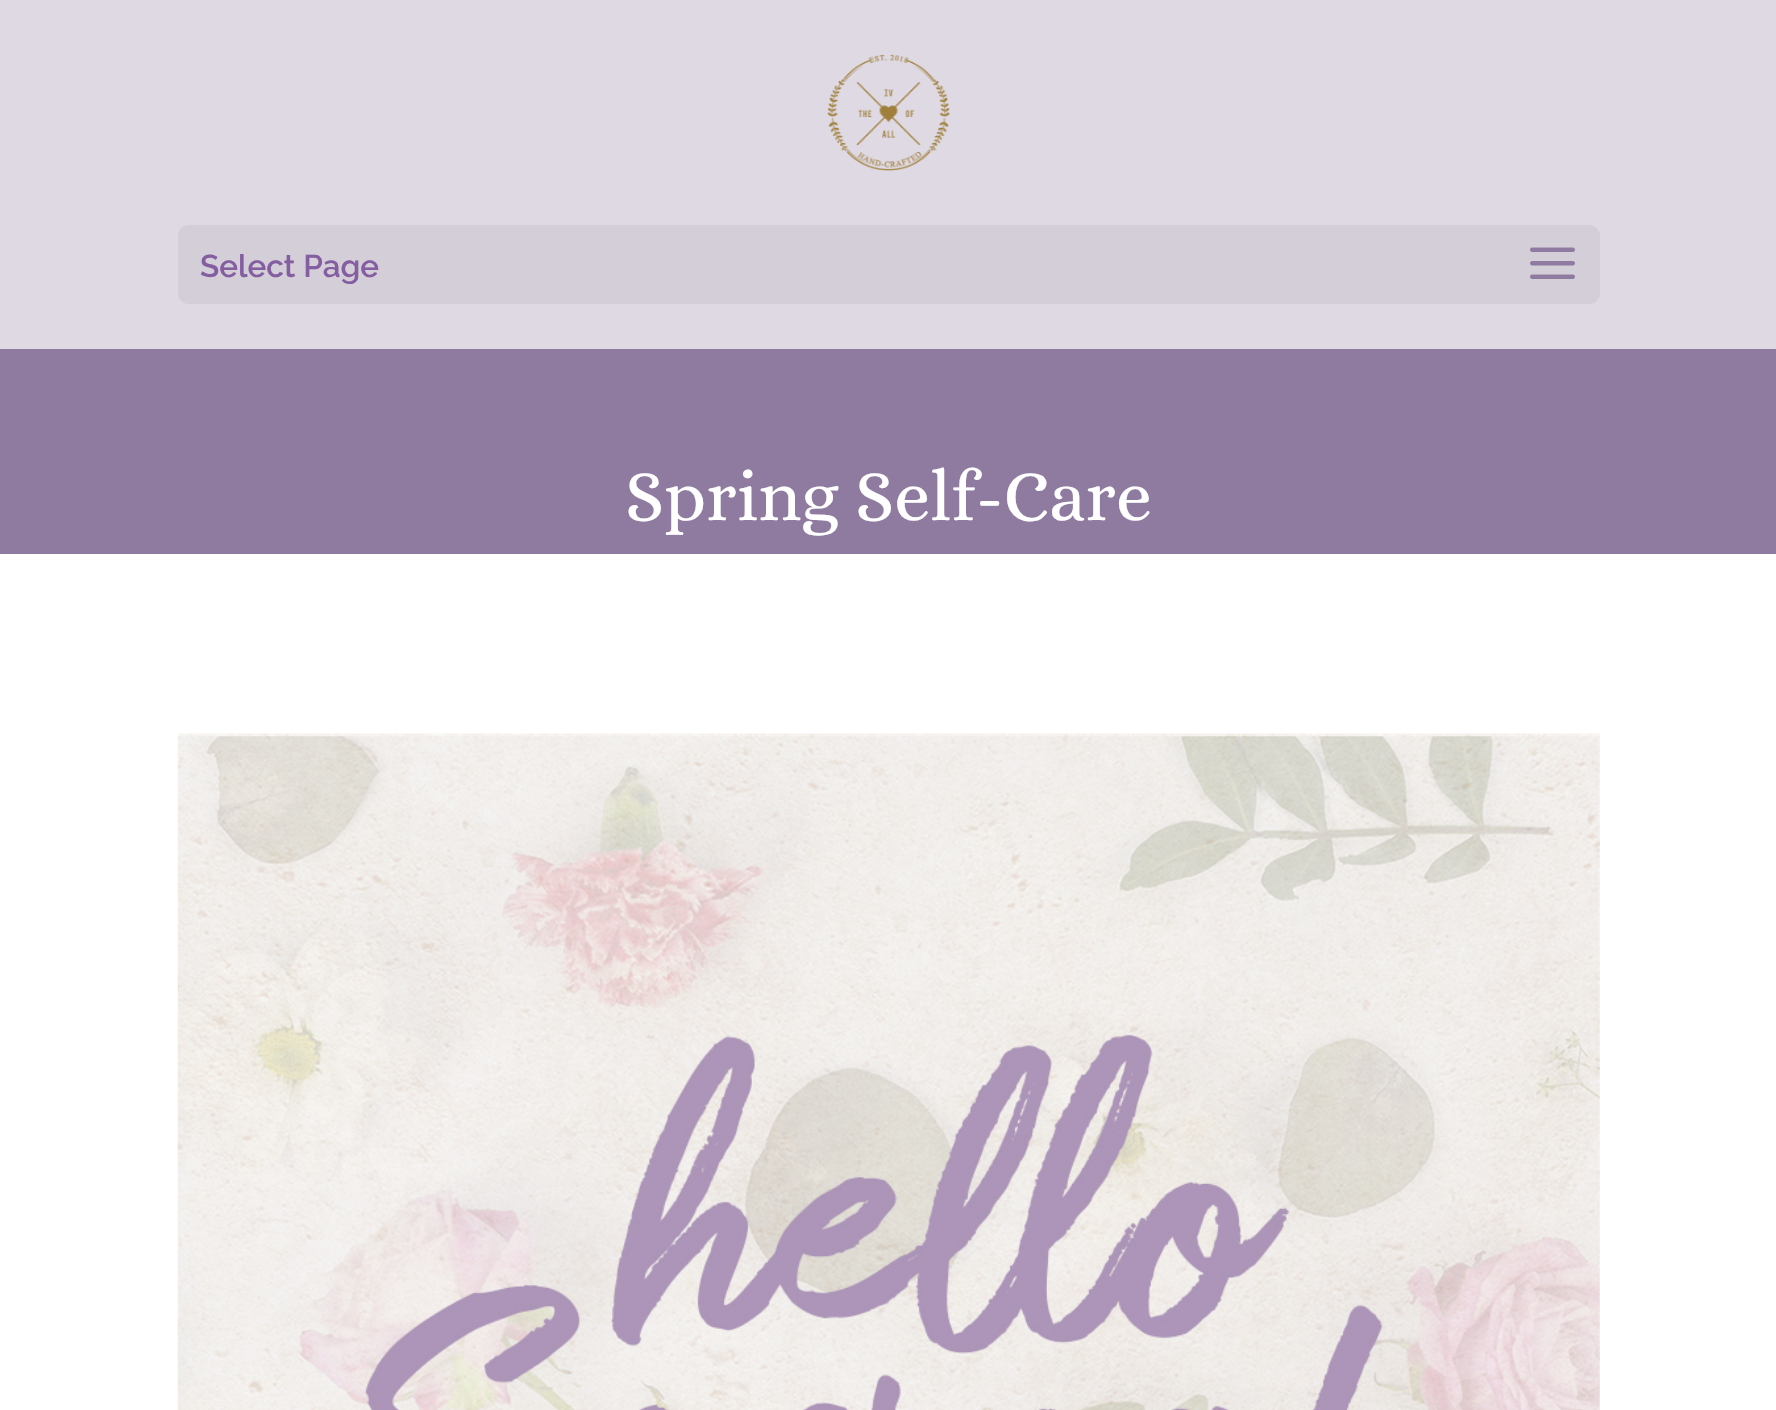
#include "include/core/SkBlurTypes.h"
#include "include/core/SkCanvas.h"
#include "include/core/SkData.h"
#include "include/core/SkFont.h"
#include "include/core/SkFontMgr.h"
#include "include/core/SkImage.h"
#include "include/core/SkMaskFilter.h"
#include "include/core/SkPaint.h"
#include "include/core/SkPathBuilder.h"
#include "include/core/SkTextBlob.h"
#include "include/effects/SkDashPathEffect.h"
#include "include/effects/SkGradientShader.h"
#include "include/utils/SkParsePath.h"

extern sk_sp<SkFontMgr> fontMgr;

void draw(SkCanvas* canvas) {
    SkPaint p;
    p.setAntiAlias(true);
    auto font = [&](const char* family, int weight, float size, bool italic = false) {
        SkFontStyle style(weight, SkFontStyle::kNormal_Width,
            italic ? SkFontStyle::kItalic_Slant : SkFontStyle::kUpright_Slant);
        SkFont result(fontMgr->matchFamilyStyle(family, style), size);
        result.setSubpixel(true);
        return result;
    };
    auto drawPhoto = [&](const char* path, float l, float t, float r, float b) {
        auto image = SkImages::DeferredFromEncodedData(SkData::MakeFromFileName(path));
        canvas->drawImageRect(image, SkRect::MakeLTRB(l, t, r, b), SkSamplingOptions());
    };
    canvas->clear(0xFFFFFFFF);
    p.setColor(0xFFDFD9E3);
    canvas->drawRect(SkRect::MakeLTRB(0, 0, 1776, 349), p);
    drawPhoto("media/1.png", 827, 54, 950, 171);
    p.setColor(0xFFD4CED8);
    canvas->drawRoundRect(SkRect::MakeLTRB(178, 225, 1600, 304), 11, 11, p);
    auto font1 = font("Raleway", 600, 31.5f);
    p.setColor(0xFF845EA0);
    canvas->drawString("Select Page", 200, 277, font1, p);
    drawPhoto("media/2.png", 1530, 247, 1575, 279);
    p.setColor(0xFF907BA0);
    canvas->drawRect(SkRect::MakeLTRB(0, 349, 1776, 554), p);
    auto font2 = font("Alice", 400, 72);
    p.setColor(0xFFFFFFFF);
    canvas->drawString("Spring Self-Care", 625, 520, font2, p);
    drawPhoto("media/3.png", 177, 733, 1600, 1410);
}
